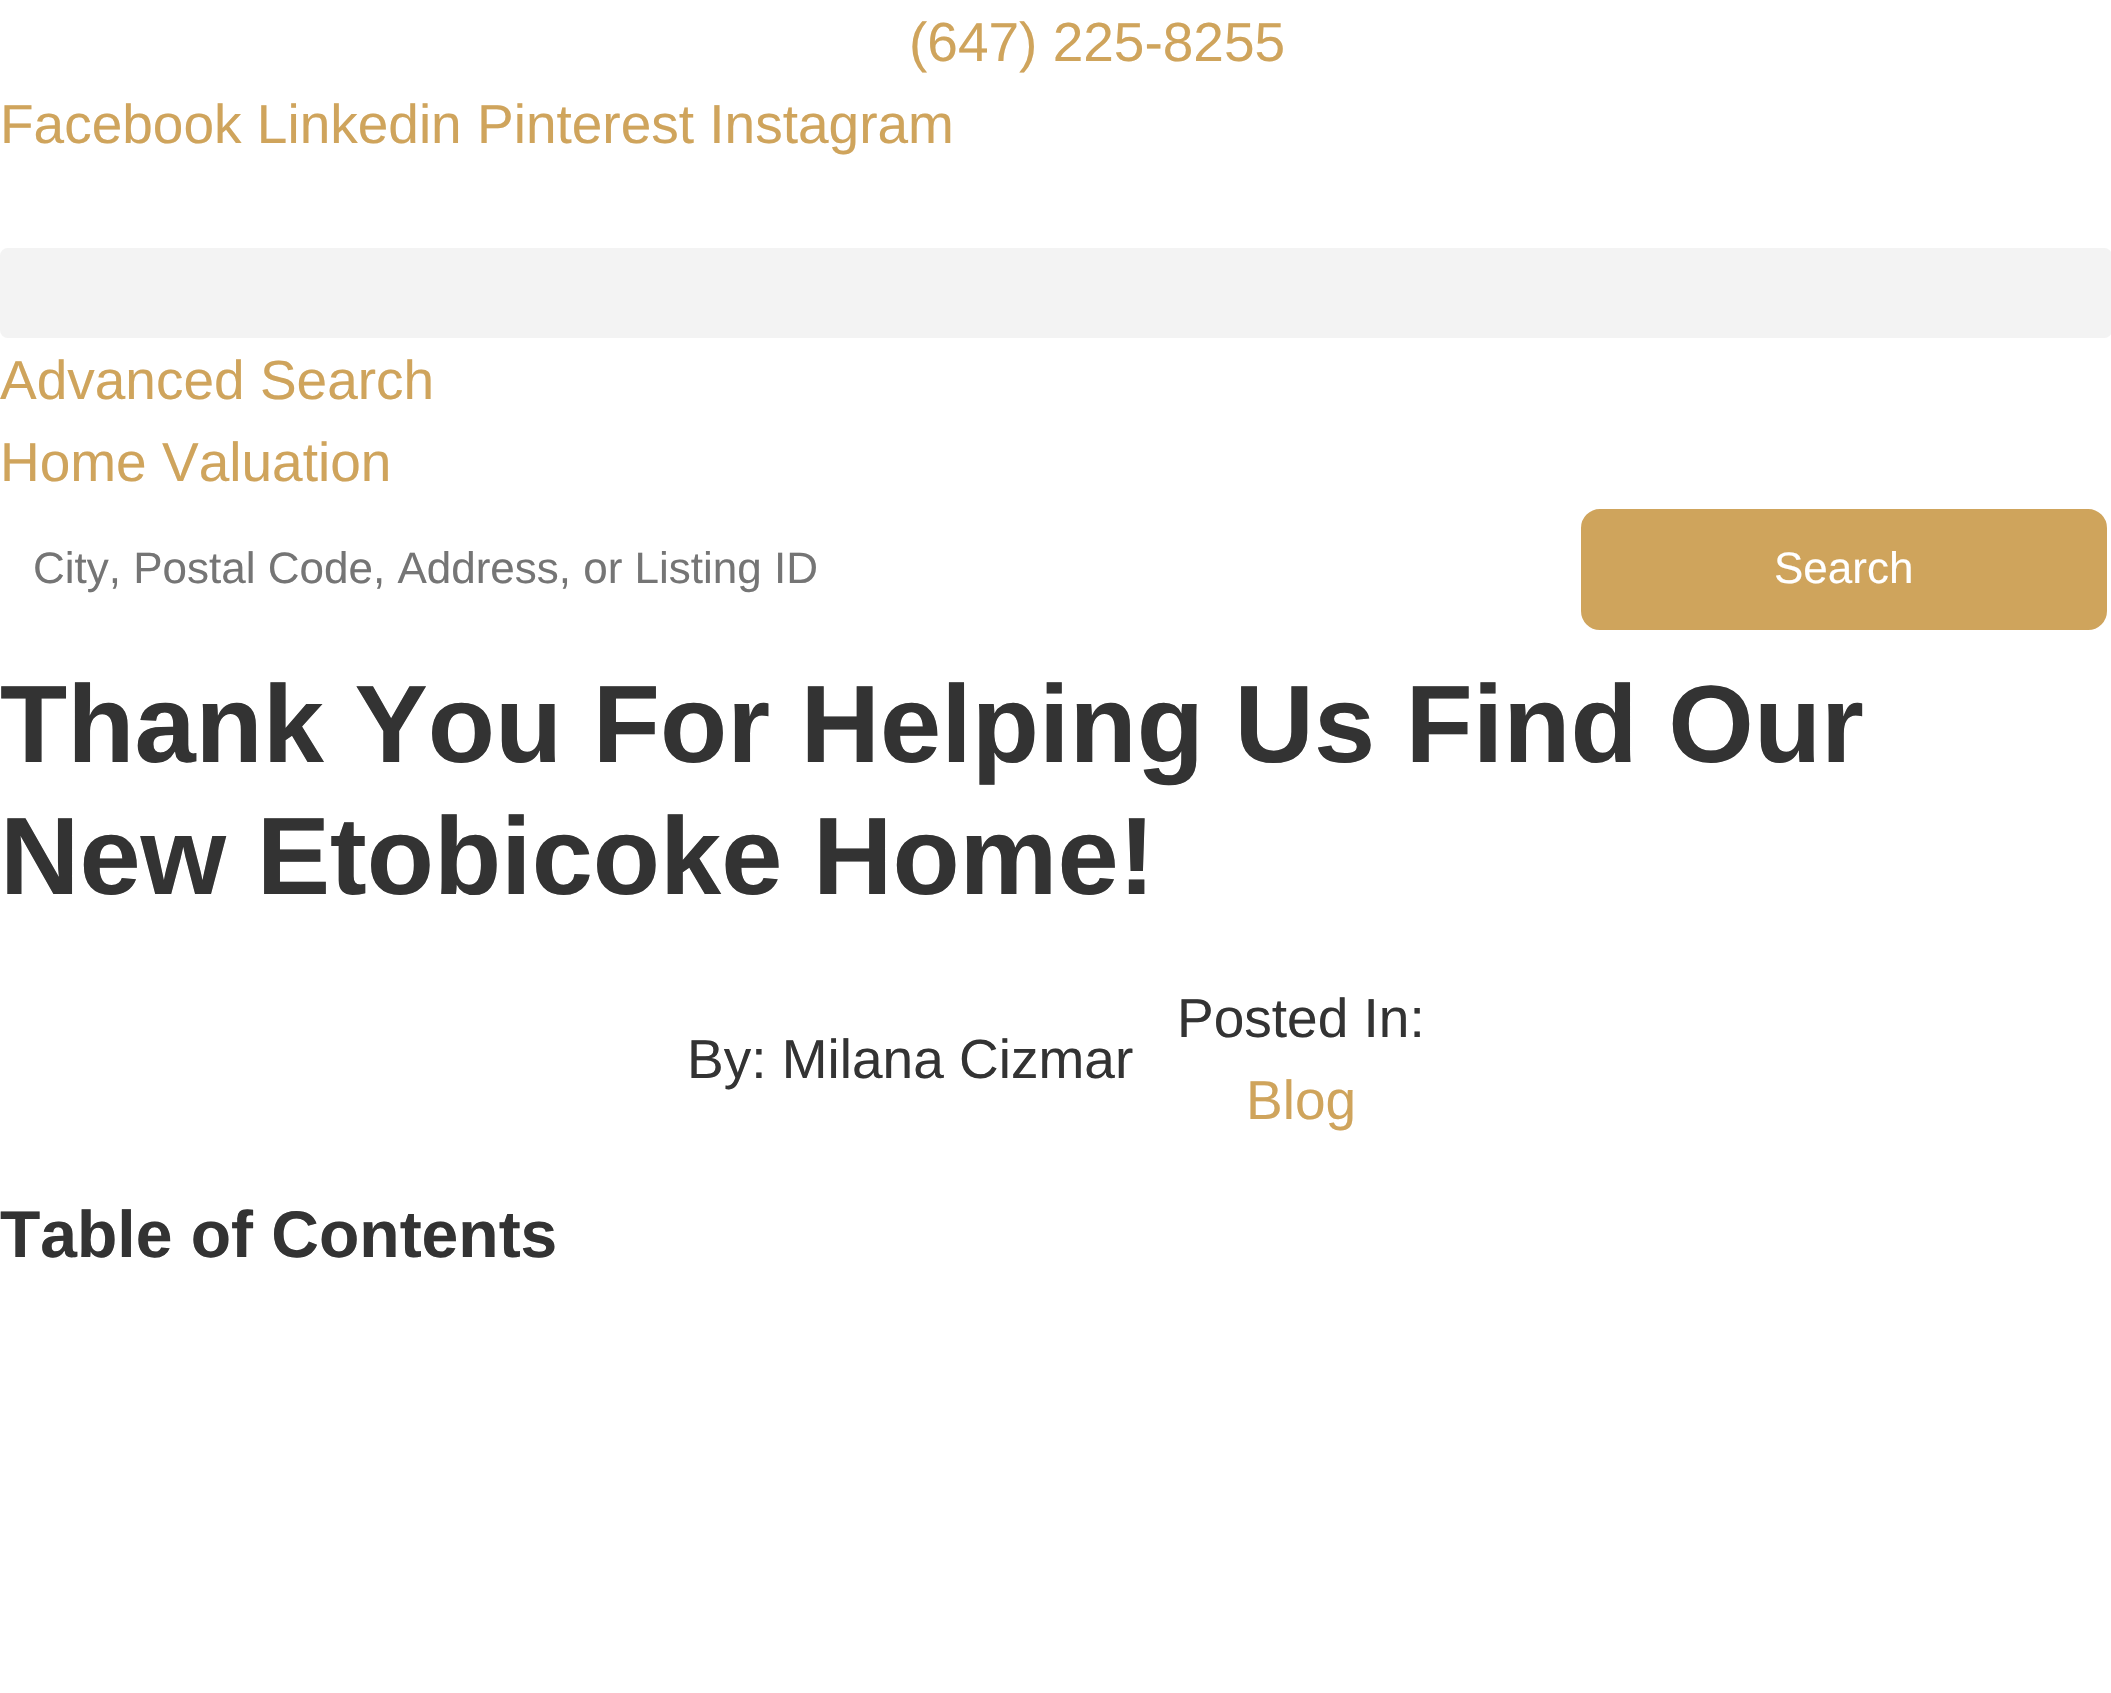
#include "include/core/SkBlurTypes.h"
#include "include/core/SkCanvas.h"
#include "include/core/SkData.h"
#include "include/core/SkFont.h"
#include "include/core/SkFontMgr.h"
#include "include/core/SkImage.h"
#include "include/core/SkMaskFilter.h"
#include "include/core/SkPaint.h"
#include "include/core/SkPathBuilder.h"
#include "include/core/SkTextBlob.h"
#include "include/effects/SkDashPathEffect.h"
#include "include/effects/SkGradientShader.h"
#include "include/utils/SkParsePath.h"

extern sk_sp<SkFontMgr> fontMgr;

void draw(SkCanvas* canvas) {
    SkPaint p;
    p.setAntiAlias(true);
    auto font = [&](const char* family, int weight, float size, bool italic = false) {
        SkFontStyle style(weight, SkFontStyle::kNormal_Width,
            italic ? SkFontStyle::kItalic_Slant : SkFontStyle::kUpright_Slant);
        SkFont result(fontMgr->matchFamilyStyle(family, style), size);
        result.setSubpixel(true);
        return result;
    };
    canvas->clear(0xFFFFFFFF);
    auto font1 = font("Liberation Sans", 400, 55);
    p.setColor(0xFFCFA45C);
    canvas->drawString("(647) 225-8255", 909, 61, font1, p);
    canvas->drawString("Facebook Linkedin Pinterest Instagram", 0, 143, font1, p);
    p.setColor(0xFFF3F3F3);
    canvas->drawRoundRect(SkRect::MakeLTRB(0, 248, 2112, 338), 8, 8, p);
    p.setColor(0xFFCFA45C);
    canvas->drawString("Advanced Search", 0, 399, font1, p);
    canvas->drawString("Home Valuation", 0, 481, font1, p);
    auto font2 = font("Liberation Sans", 400, 44);
    p.setColor(0xFF757575);
    canvas->drawString("City, Postal Code, Address, or Listing ID", 33, 583, font2, p);
    p.setColor(0xFFCFA45C);
    canvas->drawRoundRect(SkRect::MakeLTRB(1584, 512, 2104, 627), 16, 16, p);
    p.setStyle(SkPaint::kStroke_Style);
    p.setStrokeWidth(6);
    canvas->drawRoundRect(SkRect::MakeLTRB(1584, 512, 2104, 627), 16, 16, p);
    p.setStyle(SkPaint::kFill_Style);
    p.setColor(0xFFFFFFFF);
    canvas->drawString("Search", 1774, 583, font2, p);
    auto font3 = font("Liberation Sans", 700, 110);
    p.setColor(0xFF333333);
    canvas->drawString("Thank You For Helping Us Find Our", 0, 762, font3, p);
    canvas->drawString("New Etobicoke Home!", 0, 894, font3, p);
    canvas->drawString("By: Milana Cizmar", 687, 1078, font1, p);
    canvas->drawString("Posted In:", 1177, 1037, font1, p);
    p.setColor(0xFFCFA45C);
    canvas->drawString("Blog", 1246, 1119, font1, p);
    auto font4 = font("Liberation Sans", 700, 66);
    p.setColor(0xFF333333);
    canvas->drawString("Table of Contents", 0, 1257, font4, p);
}
